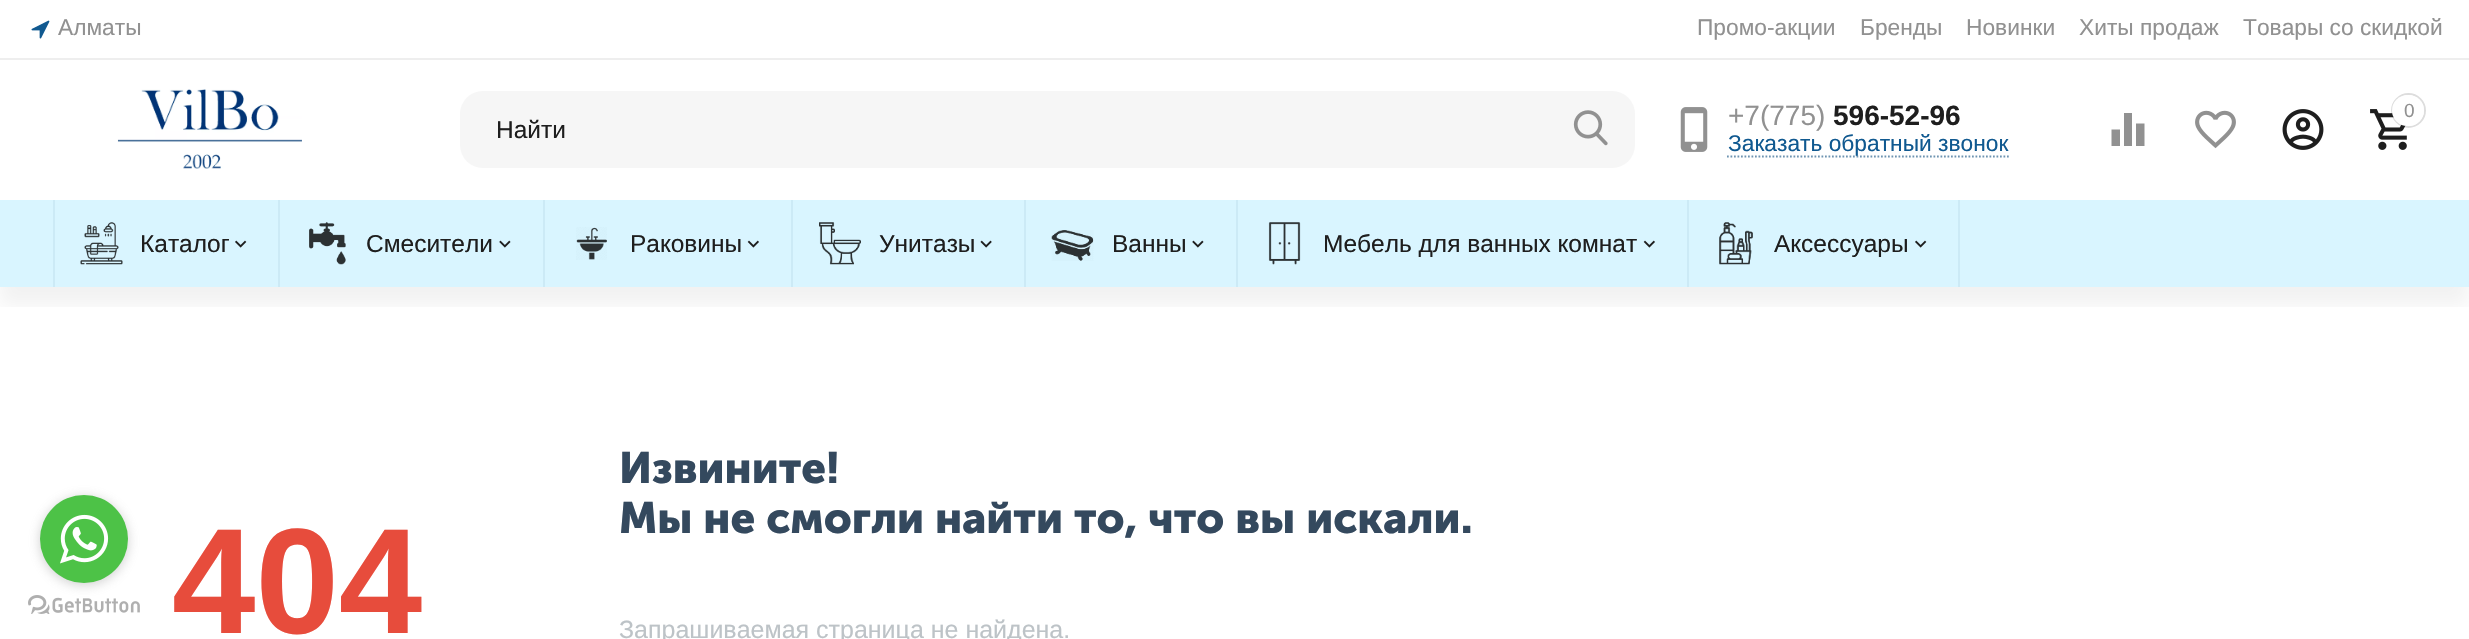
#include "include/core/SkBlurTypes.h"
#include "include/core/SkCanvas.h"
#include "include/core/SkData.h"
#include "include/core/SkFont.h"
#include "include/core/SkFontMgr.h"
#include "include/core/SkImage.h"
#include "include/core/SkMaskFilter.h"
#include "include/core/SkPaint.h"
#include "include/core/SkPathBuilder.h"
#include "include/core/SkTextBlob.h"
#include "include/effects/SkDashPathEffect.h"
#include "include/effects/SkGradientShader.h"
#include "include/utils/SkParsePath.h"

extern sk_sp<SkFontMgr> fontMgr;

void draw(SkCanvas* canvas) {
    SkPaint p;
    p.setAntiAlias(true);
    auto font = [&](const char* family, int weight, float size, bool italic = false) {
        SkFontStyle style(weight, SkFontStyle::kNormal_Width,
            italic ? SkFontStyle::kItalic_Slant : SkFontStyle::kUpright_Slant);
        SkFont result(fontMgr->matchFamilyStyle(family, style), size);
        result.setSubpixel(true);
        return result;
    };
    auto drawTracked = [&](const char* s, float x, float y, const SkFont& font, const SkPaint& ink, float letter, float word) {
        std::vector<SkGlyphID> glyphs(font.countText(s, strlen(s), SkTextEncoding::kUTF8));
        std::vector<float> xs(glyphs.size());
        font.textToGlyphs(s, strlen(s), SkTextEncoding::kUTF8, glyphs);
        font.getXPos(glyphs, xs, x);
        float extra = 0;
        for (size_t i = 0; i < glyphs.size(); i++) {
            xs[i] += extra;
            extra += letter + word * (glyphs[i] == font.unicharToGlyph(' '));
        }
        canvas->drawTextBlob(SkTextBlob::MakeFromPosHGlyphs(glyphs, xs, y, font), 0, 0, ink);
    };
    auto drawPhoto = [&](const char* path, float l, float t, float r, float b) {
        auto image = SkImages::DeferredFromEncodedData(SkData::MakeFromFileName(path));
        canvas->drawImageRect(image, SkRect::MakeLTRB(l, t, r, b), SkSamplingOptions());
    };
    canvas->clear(0xFFFFFFFF);
    p.setColor(0xFFEEEEEE);
    canvas->drawRect(SkRect::MakeLTRB(0, 58, 2469, 60), p);
    drawPhoto("media/1.png", 31, 20, 50, 39);
    auto font1 = font("Liberation Sans", 400, 22.75f);
    p.setColor(0xFF919191);
    {
        const struct { const char* s; float x, y; } items[] = {
            {"Алматы", 58, 35},
            {"Промо-акции", 1697, 35},
            {"Бренды", 1860, 35},
            {"Новинки", 1966, 35},
            {"Хиты продаж", 2079, 35},
            {"Товары со скидкой", 2243, 35},
        };
        for (auto [s, x, y] : items) {
            canvas->drawString(s, x, y, font1, p);
        }
    }
    canvas->save();
    canvas->clipRect(SkRect::MakeLTRB(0, 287, 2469, 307));
    p.setColor(0x0D000000);
    p.setMaskFilter(SkMaskFilter::MakeBlur(kNormal_SkBlurStyle, 9));
    canvas->drawRect(SkRect::MakeLTRB(0, 77, 2469, 305), p);
    p.setMaskFilter(nullptr);
    canvas->restore();
    drawPhoto("media/2.png", 117, 89, 302, 169);
    p.setColor(0xFFF6F6F6);
    canvas->drawRoundRect(SkRect::MakeLTRB(460, 91, 1635, 168), 23, 23, p);
    auto font2 = font("Liberation Sans", 400, 24.5f);
    p.setColor(0xFF1E1E1E);
    canvas->drawString("Найти", 496, 138, font2, p);
    drawPhoto("media/3.png", 1573, 110, 1608, 146);
    drawPhoto("media/4.png", 1680, 107, 1708, 152);
    auto font3 = font("Liberation Sans", 400, 28);
    p.setColor(0xFF919191);
    canvas->drawString("+7(775)", 1728, 125, font3, p);
    auto font4 = font("Liberation Sans", 700, 28);
    p.setColor(0xFF1E1E1E);
    canvas->drawString("596-52-96", 1833, 125, font4, p);
    p.setStyle(SkPaint::kStroke_Style);
    p.setStrokeWidth(1.8f);
    p.setColor(0xFF6E94B1);
    p.setPathEffect(SkDashPathEffect::Make({{1.75f, 1.75f}}, 0));
    canvas->drawPath(SkPathBuilder().moveTo(1727, 156.5f).lineTo(2009, 156.5f).detach(), p);
    p.setPathEffect(nullptr);
    p.setStyle(SkPaint::kFill_Style);
    p.setColor(0xFF105990);
    canvas->drawString("Заказать обратный звонок", 1728, 151, font1, p);
    p.setColor(0xFF919191);
    canvas->drawPath(SkPathBuilder().moveTo(2124, 146).lineTo(2132, 146).lineTo(2132, 113).lineTo(2124, 113).close().moveTo(2111.5f, 146).lineTo(2120, 146).lineTo(2120, 129.5f).lineTo(2111.5f, 129.5f).close().moveTo(2136, 123.5f).lineTo(2136, 146).lineTo(2144.5f, 146).lineTo(2144.5f, 123.5f).close().detach(), p);
    drawPhoto("media/5.png", 2195, 110, 2236, 149);
    drawPhoto("media/6.png", 2282, 109, 2324, 150);
    drawPhoto("media/7.png", 2370, 109, 2407, 150);
    p.setStyle(SkPaint::kStroke_Style);
    p.setStrokeWidth(2);
    p.setColor(0x261E1E1E);
    canvas->drawCircle(2408.5f, 110.5f, 16.5f, p);
    p.setStyle(SkPaint::kFill_Style);
    p.setColor(0xFFFFFFFF);
    canvas->drawRoundRect(SkRect::MakeLTRB(2392, 95, 2424, 126), 15.5f, 15.5f, p);
    auto font5 = font("Liberation Sans", 400, 19);
    p.setColor(0xFF919191);
    drawTracked("0", 2404, 117, font5, p, -2, 0);
    {
        const struct { float l, t, r, b; SkColor color; } items[] = {
            {0, 200, 2469, 287, 0xFFD9F5FF},
            {278, 200, 280, 287, 0xFFCCEAF6},
            {53, 200, 55, 287, 0xFFCCEAF6},
        };
        for (auto [l, t, r, b, color] : items) {
            p.setColor(color);
            canvas->drawRect(SkRect::MakeLTRB(l, t, r, b), p);
        }
    }
    drawPhoto("media/8.png", 80, 222, 123, 265);
    p.setColor(0xFF1E1E1E);
    canvas->drawString("Каталог", 140, 252, font2, p);
    drawPhoto("media/9.png", 235, 240, 247, 248);
    p.setColor(0xFFCCEAF6);
    canvas->drawRect(SkRect::MakeLTRB(543, 200, 545, 287), p);
    drawPhoto("media/10.png", 309, 222, 346, 265);
    p.setColor(0xFF1E1E1E);
    canvas->drawString("Смесители", 366, 252, font2, p);
    drawPhoto("media/11.png", 499, 240, 511, 248);
    p.setColor(0xFFCCEAF6);
    canvas->drawRect(SkRect::MakeLTRB(791, 200, 793, 287), p);
    drawPhoto("media/12.png", 576, 227, 607, 260);
    p.setColor(0xFF1E1E1E);
    canvas->drawString("Раковины", 630, 252, font2, p);
    drawPhoto("media/13.png", 747, 240, 759, 248);
    p.setColor(0xFFCCEAF6);
    canvas->drawRect(SkRect::MakeLTRB(1024, 200, 1026, 287), p);
    drawPhoto("media/14.png", 819, 222, 861, 265);
    p.setColor(0xFF1E1E1E);
    canvas->drawString("Унитазы", 879, 252, font2, p);
    drawPhoto("media/15.png", 980, 240, 992, 248);
    p.setColor(0xFFCCEAF6);
    canvas->drawRect(SkRect::MakeLTRB(1236, 200, 1238, 287), p);
    drawPhoto("media/16.png", 1051, 230, 1094, 261);
    p.setColor(0xFF1E1E1E);
    canvas->drawString("Ванны", 1112, 252, font2, p);
    drawPhoto("media/11.png", 1192, 240, 1204, 248);
    p.setColor(0xFFCCEAF6);
    canvas->drawRect(SkRect::MakeLTRB(1687, 200, 1689, 287), p);
    drawPhoto("media/17.png", 1268, 222, 1301, 265);
    p.setColor(0xFF1E1E1E);
    canvas->drawString("Мебель для ванных комнат", 1323, 252, font2, p);
    drawPhoto("media/13.png", 1643, 240, 1655, 248);
    p.setColor(0xFFCCEAF6);
    canvas->drawRect(SkRect::MakeLTRB(1958, 200, 1960, 287), p);
    drawPhoto("media/18.png", 1719, 222, 1753, 265);
    p.setColor(0xFF1E1E1E);
    canvas->drawString("Аксессуары", 1774, 252, font2, p);
    drawPhoto("media/9.png", 1915, 240, 1927, 248);
    auto font6 = font("Liberation Sans", 700, 150);
    p.setColor(0xFFE74C3C);
    canvas->drawString("404", 172, 633, font6, p);
    auto font7 = font("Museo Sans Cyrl", 700, 43.75f);
    p.setColor(0xFF34495E);
    canvas->drawString("Извините!", 619, 483, font7, p);
    canvas->drawString("Мы не смогли найти то, что вы искали.", 619, 533, font7, p);
    auto font8 = font("Liberation Sans", 400, 25);
    p.setColor(0xFFBDC3C7);
    canvas->drawString("Запрашиваемая страница не найдена.", 619, 638, font8, p);
    drawPhoto("media/20.png", 28, 595, 140, 614);
    p.setColor(0x66888888);
    p.setMaskFilter(SkMaskFilter::MakeBlur(kNormal_SkBlurStyle, 6));
    canvas->drawRoundRect(SkRect::MakeLTRB(40, 497, 128, 585), 44, 44, p);
    p.setMaskFilter(nullptr);
    p.setColor(0xFF4DC247);
    canvas->drawCircle(84, 539, 44, p);
    drawPhoto("media/19.png", 60, 514, 109, 564);
}
